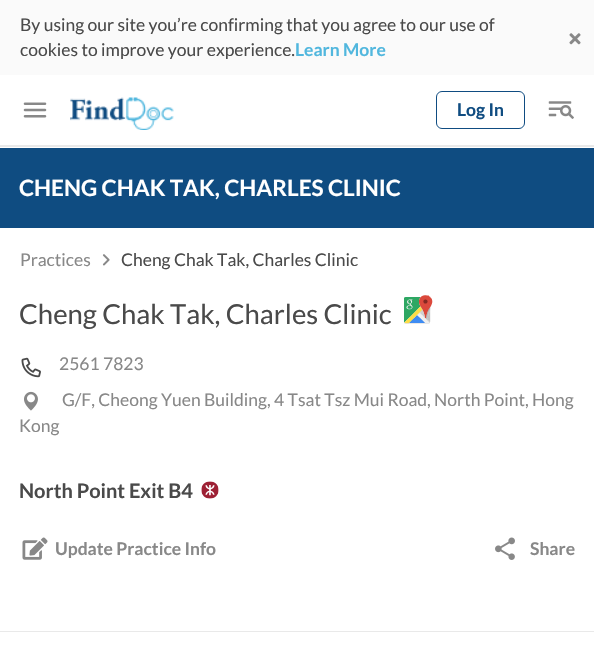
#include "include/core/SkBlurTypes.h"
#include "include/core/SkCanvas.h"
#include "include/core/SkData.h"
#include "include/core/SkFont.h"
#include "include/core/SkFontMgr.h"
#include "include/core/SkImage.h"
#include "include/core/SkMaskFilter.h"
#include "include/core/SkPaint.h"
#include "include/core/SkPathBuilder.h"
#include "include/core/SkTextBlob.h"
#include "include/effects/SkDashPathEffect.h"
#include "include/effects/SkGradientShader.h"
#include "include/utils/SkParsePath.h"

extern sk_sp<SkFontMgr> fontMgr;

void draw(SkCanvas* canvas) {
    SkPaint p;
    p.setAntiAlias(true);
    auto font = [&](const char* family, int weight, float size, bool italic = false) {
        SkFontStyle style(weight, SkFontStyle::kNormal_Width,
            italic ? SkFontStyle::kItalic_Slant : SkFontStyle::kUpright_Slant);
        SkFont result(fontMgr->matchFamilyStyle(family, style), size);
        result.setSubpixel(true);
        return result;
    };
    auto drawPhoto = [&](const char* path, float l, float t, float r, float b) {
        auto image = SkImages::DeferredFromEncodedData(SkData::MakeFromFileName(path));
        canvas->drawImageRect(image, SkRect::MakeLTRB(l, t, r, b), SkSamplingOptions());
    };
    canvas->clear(0xFFFFFFFF);
    p.setColor(0xFFFAFAFA);
    canvas->drawRect(SkRect::MakeLTRB(0, 0, 594, 75), p);
    auto font1 = font("Lato", 400, 17.5f);
    p.setColor(0xFF4A4A4A);
    canvas->drawString("By using our site you’re confirming that you agree to our use of", 20, 31, font1, p);
    canvas->drawString("cookies to improve your experience.", 20, 56, font1, p);
    auto font2 = font("Lato", 700, 17.5f);
    p.setColor(0xFF51B7DE);
    canvas->drawString("Learn More", 295, 56, font2, p);
    drawPhoto("media/1.png", 569, 33, 581, 45);
    drawPhoto("media/2.png", 23, 102, 47, 118);
    drawPhoto("media/3.png", 70, 97, 174, 130);
    p.setStyle(SkPaint::kStroke_Style);
    p.setStrokeWidth(1);
    p.setColor(0xFF0F4C81);
    canvas->drawRoundRect(SkRect::MakeLTRB(436.5f, 91.5f, 524.5f, 128.5f), 5.5f, 5.5f, p);
    p.setStyle(SkPaint::kFill_Style);
    canvas->drawString("Log In", 457, 116, font2, p);
    drawPhoto("media/4.png", 548, 101, 574, 119);
    p.setColor(0xFFE9E9E9);
    canvas->drawRect(SkRect::MakeLTRB(0, 145, 594, 147), p);
    p.setColor(0xFF0F4C81);
    canvas->drawRect(SkRect::MakeLTRB(0, 148, 594, 228), p);
    auto font3 = font("Lato", 700, 22.5f);
    p.setColor(0xFFFFFFFF);
    canvas->drawString("CHENG CHAK TAK, CHARLES CLINIC", 19, 196, font3, p);
    p.setColor(0xFF888888);
    canvas->drawString("Practices", 20, 266, font1, p);
    drawPhoto("media/5.png", 102, 254, 110, 266);
    p.setColor(0xFF4A4A4A);
    canvas->drawString("Cheng Chak Tak, Charles Clinic", 121, 266, font1, p);
    p.setColor(0xFFE9E9E9);
    canvas->drawRect(SkRect::MakeLTRB(0, 631, 594, 632), p);
    auto font4 = font("Lato", 400, 27.5f);
    p.setColor(0xFF4A4A4A);
    canvas->drawString("Cheng Chak Tak, Charles Clinic", 19, 324, font4, p);
    drawPhoto("media/6.png", 404, 295, 433, 324);
    drawPhoto("media/7.png", 21, 357, 41, 378);
    p.setColor(0xFF888888);
    canvas->drawString("2561 7823", 59, 370, font1, p);
    drawPhoto("media/8.png", 24, 391, 38, 411);
    canvas->drawString("G/F, Cheong Yuen Building, 4 Tsat Tsz Mui Road, North Point, Hong", 62, 406, font1, p);
    canvas->drawString("Kong", 19, 432, font1, p);
    auto font5 = font("Lato", 700, 20);
    p.setColor(0xFF4A4A4A);
    canvas->drawString("North Point Exit B4", 19, 498, font5, p);
    drawPhoto("media/9.png", 201, 481, 219, 499);
    drawPhoto("media/10.png", 22, 537, 48, 560);
    p.setColor(0xFF888888);
    canvas->drawString("Update Practice Info", 55, 555, font2, p);
    drawPhoto("media/11.png", 495, 537, 515, 560);
    canvas->drawString("Share", 530, 555, font2, p);
}
